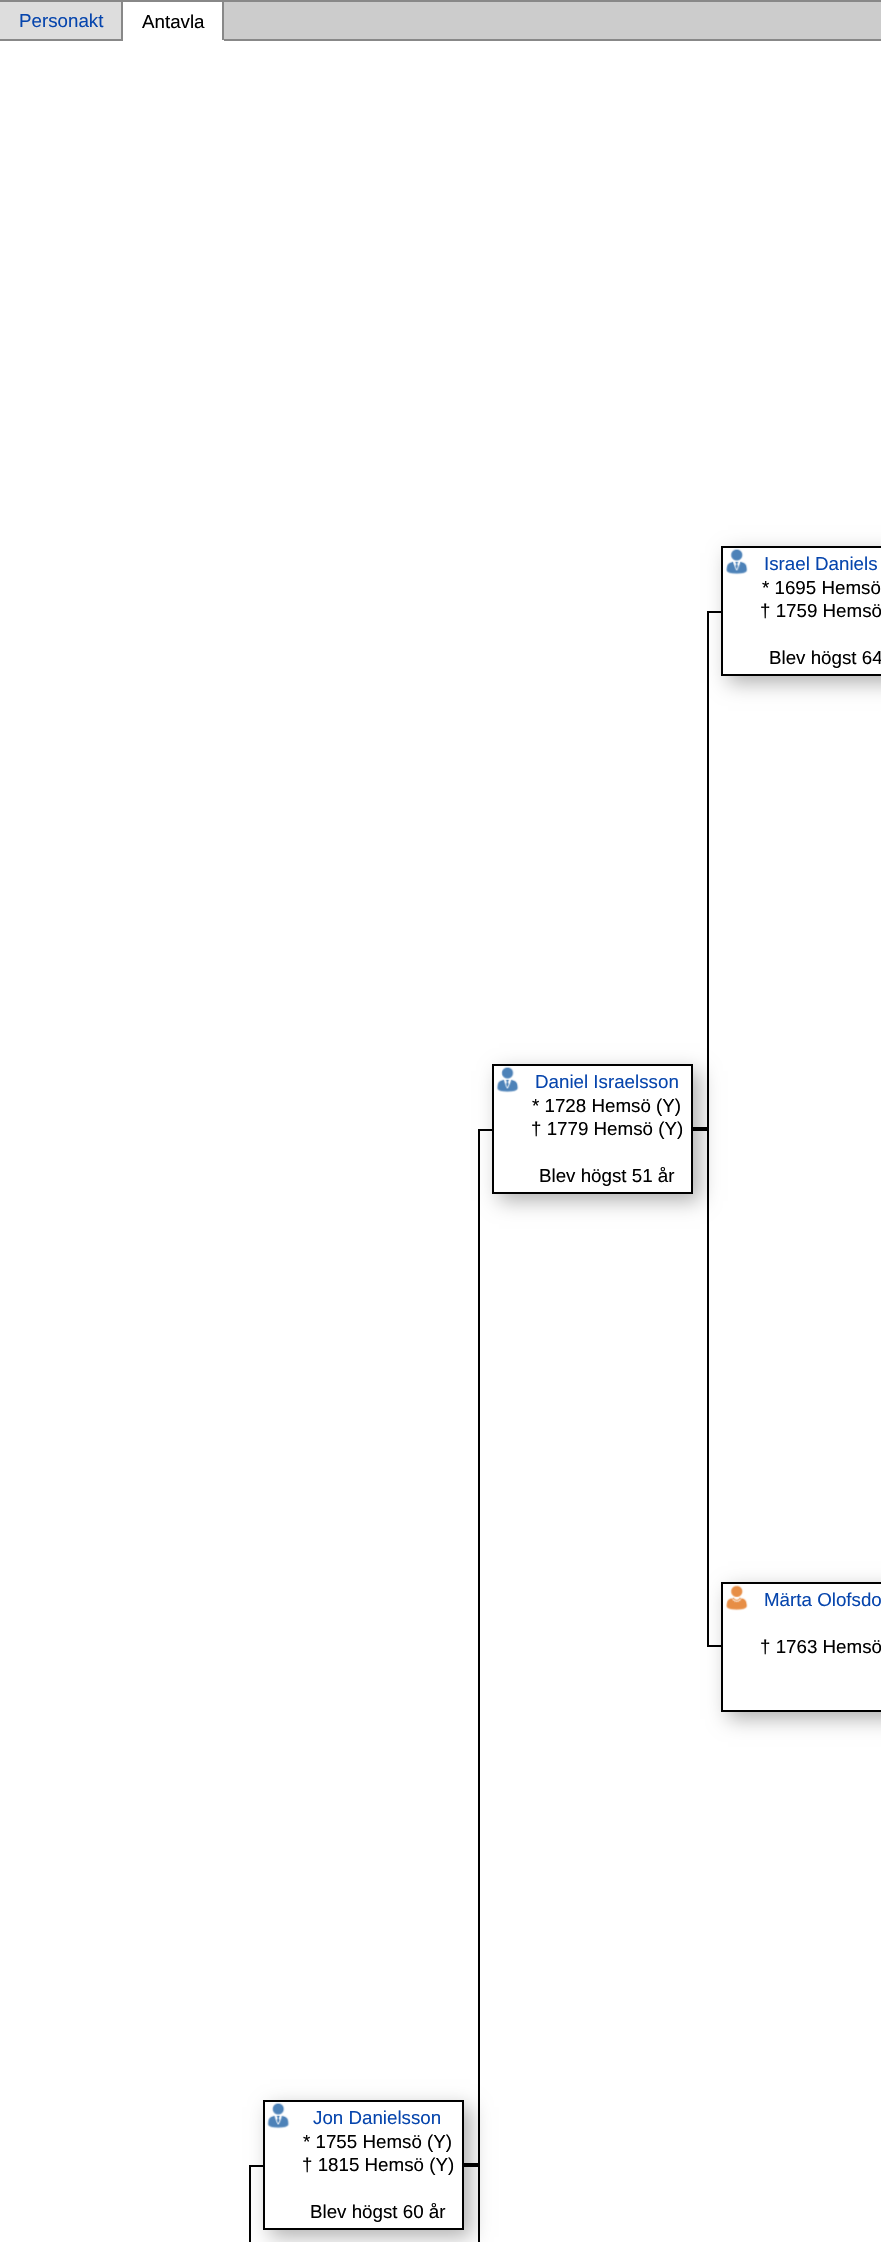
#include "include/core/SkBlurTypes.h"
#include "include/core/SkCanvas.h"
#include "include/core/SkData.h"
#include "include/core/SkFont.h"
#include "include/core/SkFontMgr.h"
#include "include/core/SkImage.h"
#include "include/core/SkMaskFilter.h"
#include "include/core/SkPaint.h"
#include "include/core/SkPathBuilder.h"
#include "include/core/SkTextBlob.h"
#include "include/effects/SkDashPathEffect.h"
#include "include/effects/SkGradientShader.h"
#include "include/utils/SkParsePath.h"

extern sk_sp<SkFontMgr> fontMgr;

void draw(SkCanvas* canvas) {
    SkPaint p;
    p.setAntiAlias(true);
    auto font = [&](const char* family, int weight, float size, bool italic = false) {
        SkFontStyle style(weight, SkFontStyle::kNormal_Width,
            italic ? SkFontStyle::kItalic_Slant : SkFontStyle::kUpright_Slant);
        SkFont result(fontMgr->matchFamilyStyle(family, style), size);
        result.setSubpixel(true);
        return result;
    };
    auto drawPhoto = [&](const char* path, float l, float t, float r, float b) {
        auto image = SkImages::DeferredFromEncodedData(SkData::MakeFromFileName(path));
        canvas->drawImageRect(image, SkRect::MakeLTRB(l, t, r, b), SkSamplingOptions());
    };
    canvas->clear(0xFFFFFFFF);
    {
        const struct { float l, t, r, b; SkColor color; } items[] = {
            {0, 2, 121, 39, 0xFFDDDDDD},
            {0, 0, 881, 2, 0xFF888888},
            {121, 0, 123, 40, 0xFF888888},
            {0, 39, 123, 41, 0xFF888888},
        };
        for (auto [l, t, r, b, color] : items) {
            p.setColor(color);
            canvas->drawRect(SkRect::MakeLTRB(l, t, r, b), p);
        }
    }
    auto font1 = font("Liberation Sans", 400, 18.75f);
    p.setColor(0xFF0645AD);
    canvas->drawString("Personakt", 19, 27, font1, p);
    p.setColor(0xFF888888);
    canvas->drawRect(SkRect::MakeLTRB(222, 0, 224, 40), p);
    p.setColor(0xFF000000);
    canvas->drawString("Antavla", 142, 28, font1, p);
    p.setColor(0xFFCCCCCC);
    canvas->drawRect(SkRect::MakeLTRB(224, 2, 881, 39), p);
    p.setColor(0xFF888888);
    canvas->drawRect(SkRect::MakeLTRB(224, 39, 881, 41), p);
    p.setColor(0x4D000000);
    p.setMaskFilter(SkMaskFilter::MakeBlur(kNormal_SkBlurStyle, 9.5f));
    canvas->drawRect(SkRect::MakeLTRB(728, 553, 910, 683), p);
    p.setMaskFilter(nullptr);
    p.setColor(0xFFFFFFFF);
    canvas->drawRect(SkRect::MakeLTRB(722, 547, 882, 675), p);
    p.setStyle(SkPaint::kStroke_Style);
    p.setStrokeWidth(2);
    p.setColor(0xFF000000);
    canvas->drawRect(SkRect::MakeLTRB(722, 547, 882, 675), p);
    drawPhoto("media/1.png", 726, 548, 748, 575);
    p.setStyle(SkPaint::kFill_Style);
    p.setColor(0xFF0645AD);
    canvas->drawString("Israel Daniels", 764, 570, font1, p);
    p.setColor(0xFF000000);
    {
        const struct { const char* s; float x, y; } items[] = {
            {"* 1695 Hemsö", 762, 594},
            {"† 1759 Hemsö", 760, 617},
            {"Blev högst 64", 769, 664},
        };
        for (auto [s, x, y] : items) {
            canvas->drawString(s, x, y, font1, p);
        }
    }
    p.setColor(0x4D000000);
    p.setMaskFilter(SkMaskFilter::MakeBlur(kNormal_SkBlurStyle, 9.5f));
    canvas->drawRect(SkRect::MakeLTRB(499, 1071, 700, 1201), p);
    p.setMaskFilter(nullptr);
    p.setColor(0xFFFFFFFF);
    canvas->drawRect(SkRect::MakeLTRB(493, 1065, 692, 1193), p);
    p.setStyle(SkPaint::kStroke_Style);
    p.setColor(0xFF000000);
    canvas->drawRect(SkRect::MakeLTRB(493, 1065, 692, 1193), p);
    drawPhoto("media/2.png", 496, 1066, 519, 1093);
    p.setStyle(SkPaint::kFill_Style);
    p.setColor(0xFF0645AD);
    canvas->drawString("Daniel Israelsson", 535, 1088, font1, p);
    p.setColor(0xFF000000);
    {
        const struct { const char* s; float x, y; } items[] = {
            {"* 1728 Hemsö (Y)", 532, 1112},
            {"† 1779 Hemsö (Y)", 531, 1135},
            {"Blev högst 51 år", 539, 1182},
        };
        for (auto [s, x, y] : items) {
            canvas->drawString(s, x, y, font1, p);
        }
    }
    canvas->drawRect(SkRect::MakeLTRB(693, 1127, 707, 1131), p);
    p.setColor(0x4D000000);
    p.setMaskFilter(SkMaskFilter::MakeBlur(kNormal_SkBlurStyle, 9.5f));
    canvas->drawRect(SkRect::MakeLTRB(270, 2107, 471, 2237), p);
    p.setMaskFilter(nullptr);
    p.setColor(0xFFFFFFFF);
    canvas->drawRect(SkRect::MakeLTRB(264, 2101, 463, 2229), p);
    p.setStyle(SkPaint::kStroke_Style);
    p.setColor(0xFF000000);
    canvas->drawRect(SkRect::MakeLTRB(264, 2101, 463, 2229), p);
    drawPhoto("media/3.png", 267, 2102, 290, 2129);
    p.setStyle(SkPaint::kFill_Style);
    p.setColor(0xFF0645AD);
    canvas->drawString("Jon Danielsson", 313, 2124, font1, p);
    p.setColor(0xFF000000);
    {
        const struct { const char* s; float x, y; } items[] = {
            {"* 1755 Hemsö (Y)", 303, 2148},
            {"† 1815 Hemsö (Y)", 302, 2171},
            {"Blev högst 60 år", 310, 2218},
        };
        for (auto [s, x, y] : items) {
            canvas->drawString(s, x, y, font1, p);
        }
    }
    {
        const struct { float l, t, r, b; SkColor color; } items[] = {
            {464, 2163, 478, 2167, 0xFF000000},
            {707, 611, 721, 613, 0xFF000000},
            {707, 611, 709, 1129, 0xFF000000},
            {478, 1129, 492, 1131, 0xFF000000},
            {478, 1129, 480, 2242, 0xFF000000},
            {707, 1645, 721, 1647, 0xFF000000},
            {707, 1129, 709, 1647, 0xFF000000},
        };
        for (auto [l, t, r, b, color] : items) {
            p.setColor(color);
            canvas->drawRect(SkRect::MakeLTRB(l, t, r, b), p);
        }
    }
    p.setColor(0x4D000000);
    p.setMaskFilter(SkMaskFilter::MakeBlur(kNormal_SkBlurStyle, 9.5f));
    canvas->drawRect(SkRect::MakeLTRB(728, 1589, 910, 1719), p);
    p.setMaskFilter(nullptr);
    p.setColor(0xFFFFFFFF);
    canvas->drawRect(SkRect::MakeLTRB(722, 1583, 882, 1711), p);
    p.setStyle(SkPaint::kStroke_Style);
    p.setColor(0xFF000000);
    canvas->drawRect(SkRect::MakeLTRB(722, 1583, 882, 1711), p);
    drawPhoto("media/4.png", 726, 1585, 748, 1611);
    p.setStyle(SkPaint::kFill_Style);
    p.setColor(0xFF0645AD);
    canvas->drawString("Märta Olofsdo", 764, 1606, font1, p);
    p.setColor(0xFF000000);
    canvas->drawString("† 1763 Hemsö", 760, 1653, font1, p);
    canvas->drawRect(SkRect::MakeLTRB(249, 2165, 263, 2167), p);
    canvas->drawRect(SkRect::MakeLTRB(249, 2165, 251, 2242), p);
}
